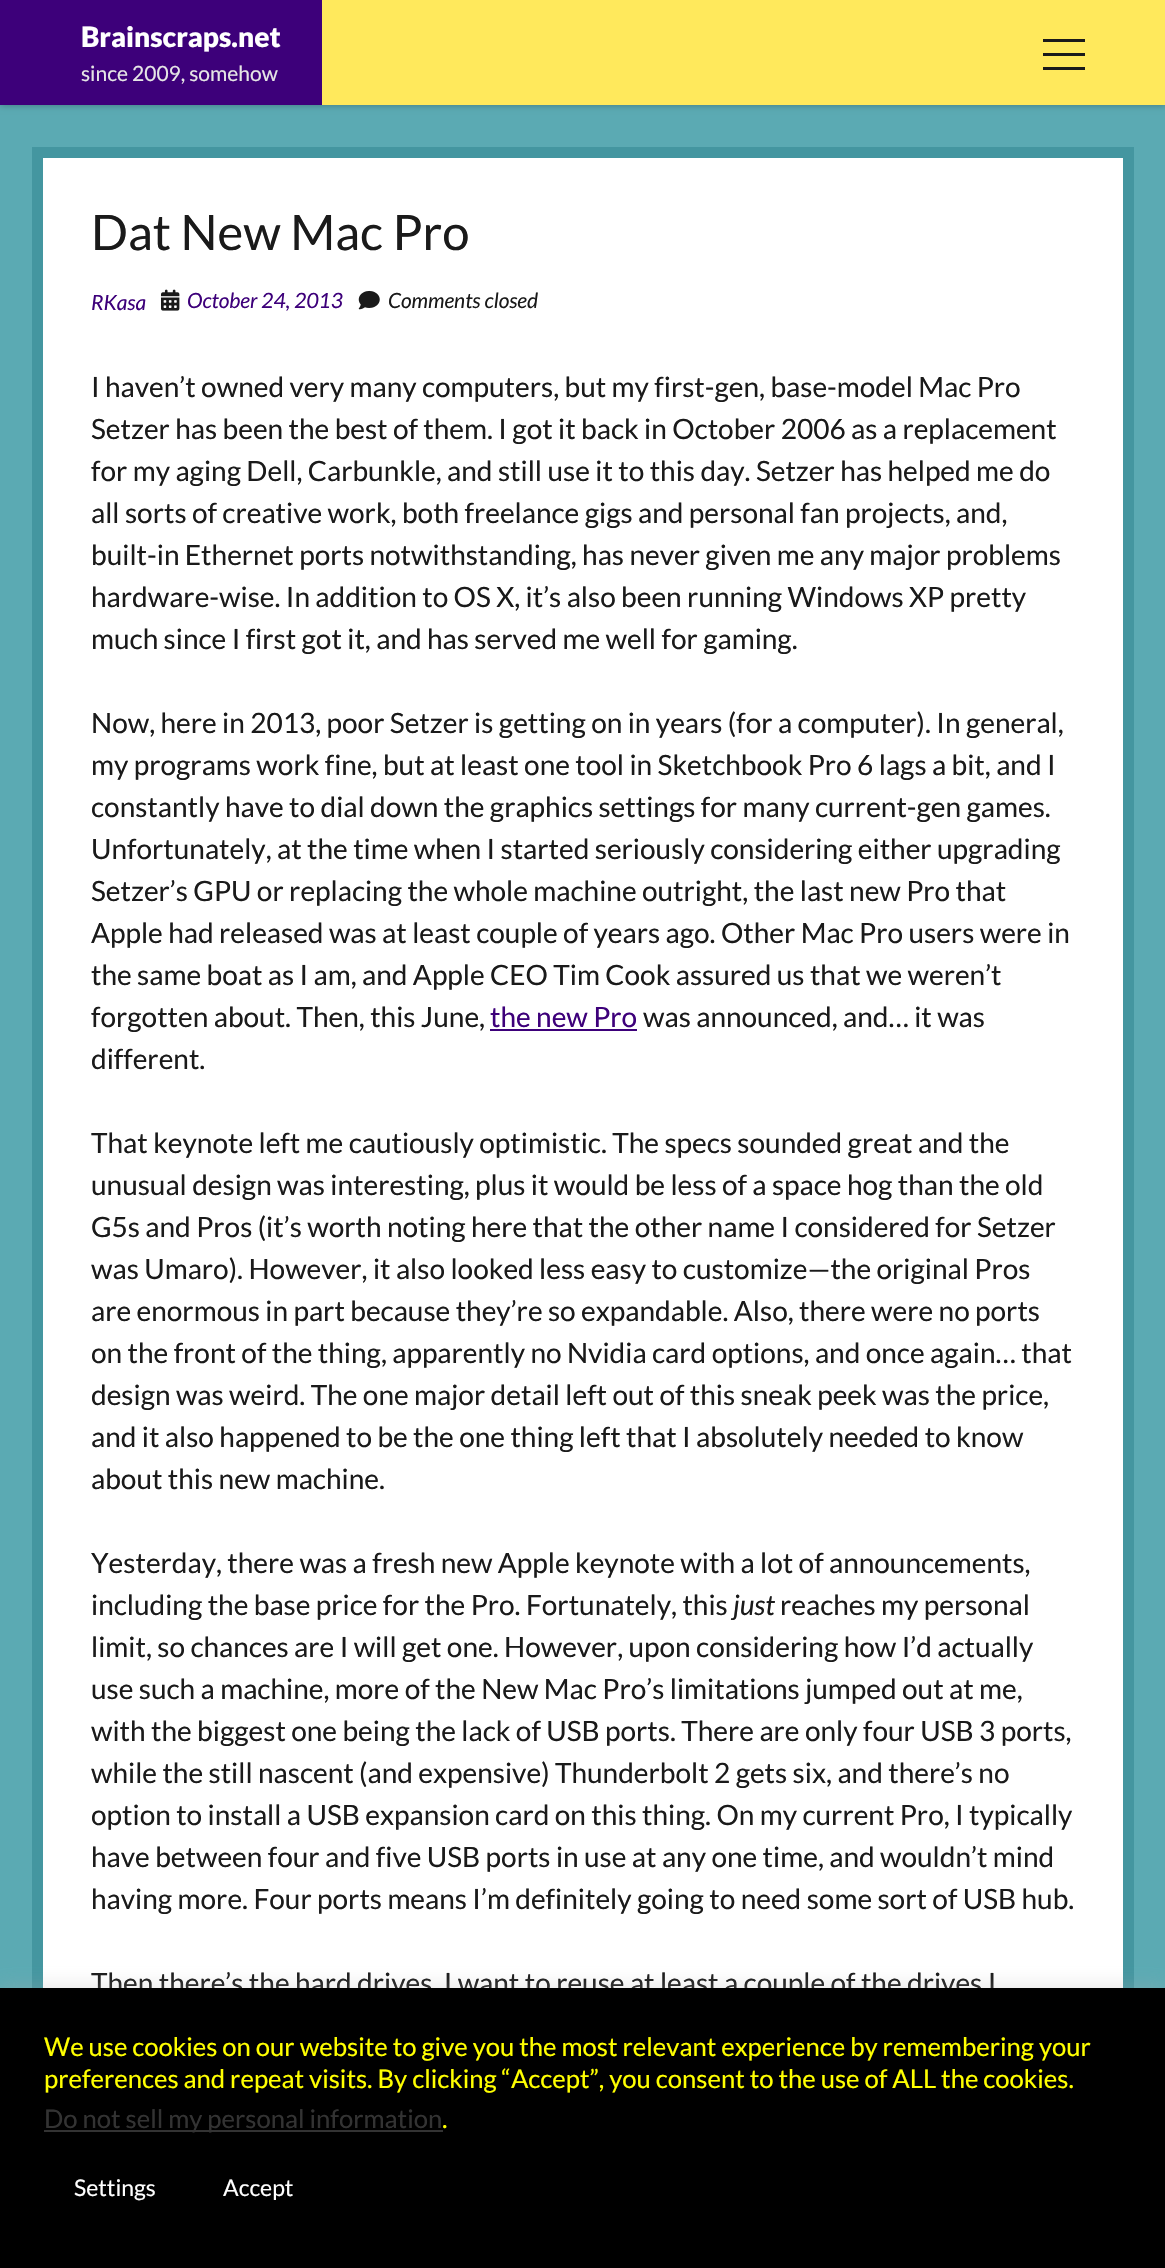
#include "include/core/SkBlurTypes.h"
#include "include/core/SkCanvas.h"
#include "include/core/SkData.h"
#include "include/core/SkFont.h"
#include "include/core/SkFontMgr.h"
#include "include/core/SkImage.h"
#include "include/core/SkMaskFilter.h"
#include "include/core/SkPaint.h"
#include "include/core/SkPathBuilder.h"
#include "include/core/SkTextBlob.h"
#include "include/effects/SkDashPathEffect.h"
#include "include/effects/SkGradientShader.h"
#include "include/utils/SkParsePath.h"

extern sk_sp<SkFontMgr> fontMgr;

void draw(SkCanvas* canvas) {
    SkPaint p;
    p.setAntiAlias(true);
    auto font = [&](const char* family, int weight, float size, bool italic = false) {
        SkFontStyle style(weight, SkFontStyle::kNormal_Width,
            italic ? SkFontStyle::kItalic_Slant : SkFontStyle::kUpright_Slant);
        SkFont result(fontMgr->matchFamilyStyle(family, style), size);
        result.setSubpixel(true);
        return result;
    };
    auto drawPhoto = [&](const char* path, float l, float t, float r, float b) {
        auto image = SkImages::DeferredFromEncodedData(SkData::MakeFromFileName(path));
        canvas->drawImageRect(image, SkRect::MakeLTRB(l, t, r, b), SkSamplingOptions());
    };
    canvas->clear(0xFF5BAAB3);
    p.setColor(0x4D000000);
    p.setMaskFilter(SkMaskFilter::MakeBlur(kNormal_SkBlurStyle, 3.5f));
    canvas->drawRect(SkRect::MakeLTRB(0, 0, 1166, 105), p);
    p.setMaskFilter(nullptr);
    p.setColor(0xFFFFE95C);
    canvas->drawRect(SkRect::MakeLTRB(322, 0, 1165, 105), p);
    p.setColor(0xFF3D007A);
    canvas->drawRect(SkRect::MakeLTRB(0, 0, 322, 105), p);
    auto font1 = font("Lato", 900, 28);
    p.setColor(0xFFFFFFFF);
    canvas->drawString("Brainscraps.net", 81, 47, font1, p);
    auto font2 = font("Lato", 400, 21);
    p.setColor(0xFFE6E6E6);
    canvas->drawString("since 2009, somehow", 81, 81, font2, p);
    {
        const struct { float l, t, r, b; SkColor color; } items[] = {
            {1043, 67, 1085, 70, 0xFF1A1A1A},
            {1043, 53, 1085, 56, 0xFF1A1A1A},
            {1043, 39, 1085, 42, 0xFF1A1A1A},
            {43, 158, 1123, 1988, 0xFFFFFFFF},
        };
        for (auto [l, t, r, b, color] : items) {
            p.setColor(color);
            canvas->drawRect(SkRect::MakeLTRB(l, t, r, b), p);
        }
    }
    p.setStyle(SkPaint::kStroke_Style);
    p.setStrokeWidth(11);
    p.setColor(0xFF4496A0);
    canvas->drawRect(SkRect::MakeLTRB(37.5f, 152.5f, 1128.5f, 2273.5f), p);
    auto font3 = font("Lato", 400, 49);
    p.setStyle(SkPaint::kFill_Style);
    p.setColor(0xFF1A1A1A);
    canvas->drawString("Dat New Mac Pro", 91, 250, font3, p);
    auto font4 = font("Lato", 400, 21, true);
    p.setColor(0xFF3D007A);
    canvas->drawString("RKasa", 91, 310, font4, p);
    drawPhoto("media/1.png", 161, 289, 180, 311);
    canvas->drawString("October 24, 2013", 187, 308, font4, p);
    drawPhoto("media/2.png", 358, 290, 380, 310);
    p.setColor(0xFF1A1A1A);
    canvas->drawString("Comments closed", 388, 308, font4, p);
    auto font5 = font("Lato", 400, 28);
    {
        const struct { const char* s; float x, y; } items[] = {
            {"I haven’t owned very many computers, but my first-gen, base-model Mac Pro", 91, 397},
            {"Setzer has been the best of them. I got it back in October 2006 as a replacement", 91, 439},
            {"for my aging Dell, Carbunkle, and still use it to this day. Setzer has helped me do", 91, 481},
            {"all sorts of creative work, both freelance gigs and personal fan projects, and,", 91, 523},
            {"built-in Ethernet ports notwithstanding, has never given me any major problems", 91, 565},
            {"hardware-wise. In addition to OS X, it’s also been running Windows XP pretty", 91, 607},
            {"much since I first got it, and has served me well for gaming.", 91, 649},
            {"Now, here in 2013, poor Setzer is getting on in years (for a computer). In general,", 91, 733},
            {"my programs work fine, but at least one tool in Sketchbook Pro 6 lags a bit, and I", 91, 775},
            {"constantly have to dial down the graphics settings for many current-gen games.", 91, 817},
            {"Unfortunately, at the time when I started seriously considering either upgrading", 91, 859},
            {"Setzer’s GPU or replacing the whole machine outright, the last new Pro that", 91, 901},
            {"Apple had released was at least couple of years ago. Other Mac Pro users were in", 91, 943},
            {"the same boat as I am, and Apple CEO Tim Cook assured us that we weren’t", 91, 985},
            {"forgotten about. Then, this June,", 91, 1027},
        };
        for (auto [s, x, y] : items) {
            canvas->drawString(s, x, y, font5, p);
        }
    }
    p.setColor(0xFF3D007A);
    canvas->drawString("the new Pro", 490, 1027, font5, p);
    canvas->drawRect(SkRect::MakeLTRB(490, 1029, 637, 1031), p);
    p.setColor(0xFF1A1A1A);
    {
        const struct { const char* s; float x, y; } items[] = {
            {"was announced, and… it was", 643, 1027},
            {"different.", 91, 1069},
            {"That keynote left me cautiously optimistic. The specs sounded great and the", 91, 1153},
            {"unusual design was interesting, plus it would be less of a space hog than the old", 91, 1195},
            {"G5s and Pros (it’s worth noting here that the other name I considered for Setzer", 91, 1237},
            {"was Umaro). However, it also looked less easy to customize—the original Pros", 91, 1279},
            {"are enormous in part because they’re so expandable. Also, there were no ports", 91, 1321},
            {"on the front of the thing, apparently no Nvidia card options, and once again… that", 91, 1363},
            {"design was weird. The one major detail left out of this sneak peek was the price,", 91, 1405},
            {"and it also happened to be the one thing left that I absolutely needed to know", 91, 1447},
            {"about this new machine.", 91, 1489},
            {"Yesterday, there was a fresh new Apple keynote with a lot of announcements,", 91, 1573},
            {"including the base price for the Pro. Fortunately, this", 91, 1615},
        };
        for (auto [s, x, y] : items) {
            canvas->drawString(s, x, y, font5, p);
        }
    }
    auto font6 = font("Lato", 400, 28, true);
    canvas->drawString("just", 733, 1615, font6, p);
    {
        const struct { const char* s; float x, y; } items[] = {
            {"reaches my personal", 780, 1615},
            {"limit, so chances are I will get one. However, upon considering how I’d actually", 91, 1657},
            {"use such a machine, more of the New Mac Pro’s limitations jumped out at me,", 91, 1699},
            {"with the biggest one being the lack of USB ports. There are only four USB 3 ports,", 91, 1741},
            {"while the still nascent (and expensive) Thunderbolt 2 gets six, and there’s no", 91, 1783},
            {"option to install a USB expansion card on this thing. On my current Pro, I typically", 91, 1825},
            {"have between four and five USB ports in use at any one time, and wouldn’t mind", 91, 1867},
            {"having more. Four ports means I’m definitely going to need some sort of USB hub.", 91, 1909},
            {"Then there’s the hard drives. I want to reuse at least a couple of the drives I", 91, 1993},
        };
        for (auto [s, x, y] : items) {
            canvas->drawString(s, x, y, font5, p);
        }
    }
    p.setColor(0x4DACABAB);
    p.setMaskFilter(SkMaskFilter::MakeBlur(kNormal_SkBlurStyle, 9));
    canvas->drawRect(SkRect::MakeLTRB(0, 1986, 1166, 2266), p);
    p.setMaskFilter(nullptr);
    p.setColor(0xFF000000);
    canvas->drawRect(SkRect::MakeLTRB(0, 1988, 1165, 2268), p);
    auto font7 = font("Lato", 400, 25.65f);
    p.setColor(0xFFFFFF00);
    canvas->drawString("We use cookies on our website to give you the most relevant experience by remembering your", 44, 2056, font7, p);
    canvas->drawString("preferences and repeat visits. By clicking “Accept”, you consent to the use of ALL the cookies.", 44, 2088, font7, p);
    p.setColor(0xFF333333);
    canvas->drawRect(SkRect::MakeLTRB(44, 2130, 443, 2132), p);
    canvas->drawString("Do not sell my personal information", 44, 2128, font7, p);
    p.setColor(0xFFFFFF00);
    canvas->drawString(".", 442, 2128, font7, p);
    auto font8 = font("Lato", 400, 23);
    p.setColor(0xFFFFFFFF);
    canvas->drawString("Settings", 74, 2196, font8, p);
    canvas->drawString("Accept", 223, 2196, font8, p);
}
